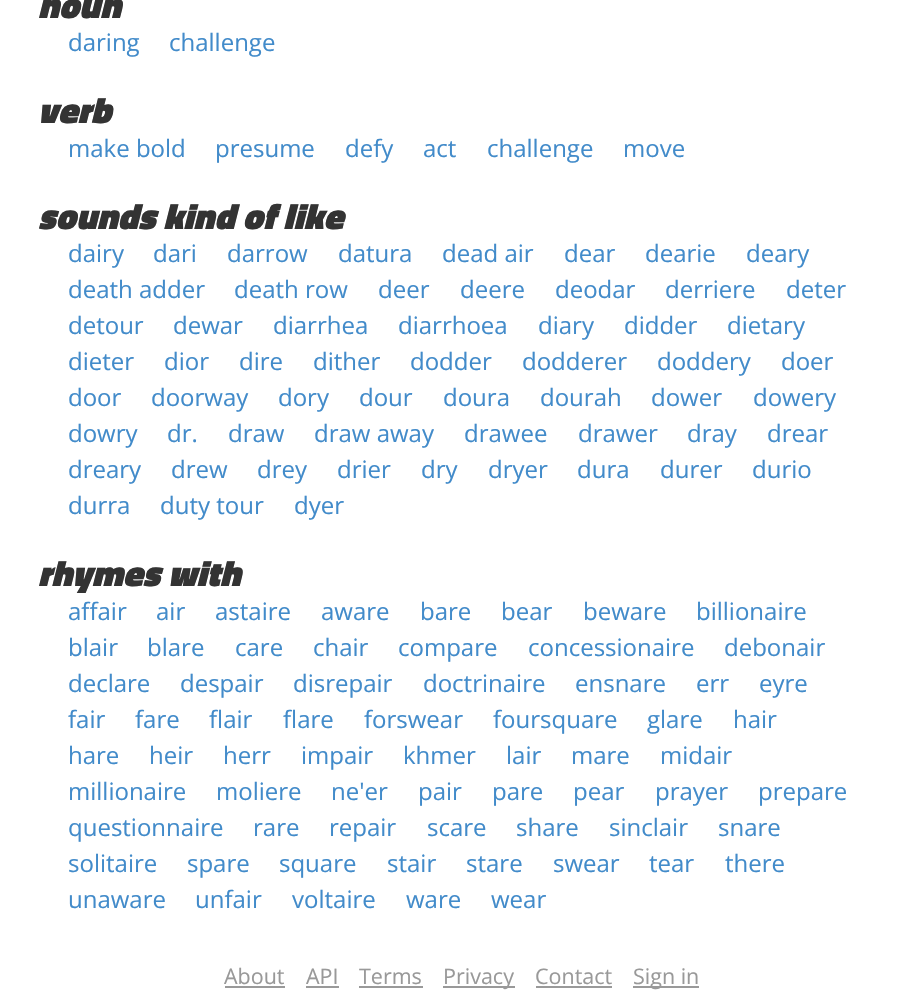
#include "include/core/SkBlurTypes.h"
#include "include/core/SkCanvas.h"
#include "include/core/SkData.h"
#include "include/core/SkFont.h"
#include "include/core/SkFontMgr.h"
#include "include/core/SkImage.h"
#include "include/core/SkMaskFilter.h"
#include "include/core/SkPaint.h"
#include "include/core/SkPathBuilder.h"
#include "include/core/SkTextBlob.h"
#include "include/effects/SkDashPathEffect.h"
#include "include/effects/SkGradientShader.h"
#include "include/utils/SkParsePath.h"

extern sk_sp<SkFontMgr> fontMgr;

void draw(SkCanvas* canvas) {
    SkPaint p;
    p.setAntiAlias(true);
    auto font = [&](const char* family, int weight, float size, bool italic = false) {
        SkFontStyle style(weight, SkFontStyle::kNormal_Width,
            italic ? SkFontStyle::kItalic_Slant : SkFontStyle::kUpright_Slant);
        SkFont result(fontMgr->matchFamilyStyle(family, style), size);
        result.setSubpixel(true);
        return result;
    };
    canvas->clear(0xFFFFFFFF);
    auto font1 = font("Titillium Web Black", 900, 36, true);
    p.setColor(0xFF333333);
    canvas->drawString("noun", 38, 18, font1, p);
    auto font2 = font("Open Sans", 400, 24);
    p.setColor(0xFF428BCA);
    canvas->drawString("daring", 68, 51, font2, p);
    canvas->drawString("challenge", 169, 51, font2, p);
    p.setColor(0xFF333333);
    canvas->drawString("verb", 38, 123, font1, p);
    p.setColor(0xFF428BCA);
    {
        const struct { const char* s; float x, y; } items[] = {
            {"make bold", 68, 157},
            {"presume", 215, 157},
            {"defy", 345, 157},
            {"act", 423, 157},
            {"challenge", 487, 157},
            {"move", 623, 157},
        };
        for (auto [s, x, y] : items) {
            canvas->drawString(s, x, y, font2, p);
        }
    }
    p.setColor(0xFF333333);
    canvas->drawString("sounds kind of like", 38, 229, font1, p);
    p.setColor(0xFF428BCA);
    {
        const struct { const char* s; float x, y; } items[] = {
            {"dairy", 68, 262},
            {"dari", 153, 262},
            {"darrow", 227, 262},
            {"datura", 338, 262},
            {"dead air", 442, 262},
            {"dear", 564, 262},
            {"dearie", 645, 262},
            {"deary", 746, 262},
            {"death adder", 68, 298},
            {"death row", 234, 298},
            {"deer", 378, 298},
            {"deere", 460, 298},
            {"deodar", 555, 298},
            {"derriere", 665, 298},
            {"deter", 786, 298},
            {"detour", 68, 334},
            {"dewar", 173, 334},
            {"diarrhea", 273, 334},
            {"diarrhoea", 398, 334},
            {"diary", 538, 334},
            {"didder", 624, 334},
            {"dietary", 727, 334},
            {"dieter", 68, 370},
            {"dior", 164, 370},
            {"dire", 239, 370},
            {"dither", 313, 370},
            {"dodder", 410, 370},
            {"dodderer", 522, 370},
            {"doddery", 657, 370},
            {"doer", 781, 370},
            {"door", 68, 406},
            {"doorway", 151, 406},
            {"dory", 278, 406},
            {"dour", 359, 406},
            {"doura", 443, 406},
            {"dourah", 540, 406},
            {"dower", 651, 406},
            {"dowery", 753, 406},
            {"dowry", 68, 442},
            {"dr.", 167, 442},
            {"draw", 228, 442},
            {"draw away", 314, 442},
            {"drawee", 464, 442},
            {"drawer", 578, 442},
            {"dray", 687, 442},
            {"drear", 767, 442},
            {"dreary", 68, 478},
            {"drew", 171, 478},
            {"drey", 257, 478},
            {"drier", 337, 478},
            {"dry", 421, 478},
            {"dryer", 488, 478},
            {"dura", 577, 478},
            {"durer", 660, 478},
            {"durio", 752, 478},
            {"durra", 68, 514},
            {"duty tour", 160, 514},
            {"dyer", 294, 514},
        };
        for (auto [s, x, y] : items) {
            canvas->drawString(s, x, y, font2, p);
        }
    }
    p.setColor(0xFF333333);
    canvas->drawString("rhymes with", 38, 586, font1, p);
    p.setColor(0xFF428BCA);
    {
        const struct { const char* s; float x, y; } items[] = {
            {"affair", 68, 620},
            {"air", 156, 620},
            {"astaire", 215, 620},
            {"aware", 321, 620},
            {"bare", 420, 620},
            {"bear", 501, 620},
            {"beware", 583, 620},
            {"billionaire", 696, 620},
            {"blair", 68, 656},
            {"blare", 147, 656},
            {"care", 235, 656},
            {"chair", 313, 656},
            {"compare", 398, 656},
            {"concessionaire", 528, 656},
            {"debonair", 724, 656},
            {"declare", 68, 692},
            {"despair", 180, 692},
            {"disrepair", 293, 692},
            {"doctrinaire", 423, 692},
            {"ensnare", 575, 692},
            {"err", 696, 692},
            {"eyre", 759, 692},
            {"fair", 68, 728},
            {"fare", 135, 728},
            {"flair", 209, 728},
            {"flare", 283, 728},
            {"forswear", 364, 728},
            {"foursquare", 493, 728},
            {"glare", 647, 728},
            {"hair", 733, 728},
            {"hare", 68, 764},
            {"heir", 149, 764},
            {"herr", 223, 764},
            {"impair", 301, 764},
            {"khmer", 403, 764},
            {"lair", 506, 764},
            {"mare", 571, 764},
            {"midair", 660, 764},
            {"millionaire", 68, 800},
            {"moliere", 216, 800},
            {"ne'er", 331, 800},
            {"pair", 418, 800},
            {"pare", 492, 800},
            {"pear", 573, 800},
            {"prayer", 655, 800},
            {"prepare", 758, 800},
            {"questionnaire", 68, 836},
            {"rare", 253, 836},
            {"repair", 329, 836},
            {"scare", 427, 836},
            {"share", 516, 836},
            {"sinclair", 609, 836},
            {"snare", 718, 836},
            {"solitaire", 68, 872},
            {"spare", 187, 872},
            {"square", 279, 872},
            {"stair", 387, 872},
            {"stare", 466, 872},
            {"swear", 553, 872},
            {"tear", 649, 872},
            {"there", 725, 872},
            {"unaware", 68, 908},
            {"unfair", 195, 908},
            {"voltaire", 292, 908},
            {"ware", 406, 908},
            {"wear", 491, 908},
        };
        for (auto [s, x, y] : items) {
            canvas->drawString(s, x, y, font2, p);
        }
    }
    auto font3 = font("Open Sans", 400, 21.5f);
    p.setColor(0xFF999999);
    canvas->drawString("About", 224, 984, font3, p);
    canvas->drawRect(SkRect::MakeLTRB(225, 986, 285, 988), p);
    canvas->drawString("API", 306, 984, font3, p);
    canvas->drawRect(SkRect::MakeLTRB(306, 986, 339, 988), p);
    canvas->drawString("Terms", 359, 984, font3, p);
    canvas->drawRect(SkRect::MakeLTRB(359, 986, 423, 988), p);
    canvas->drawRect(SkRect::MakeLTRB(443, 986, 515, 988), p);
    canvas->drawString("Privacy", 443, 984, font3, p);
    canvas->drawString("Contact", 535, 984, font3, p);
    canvas->drawRect(SkRect::MakeLTRB(536, 986, 612, 988), p);
    canvas->drawRect(SkRect::MakeLTRB(633, 986, 699, 988), p);
    canvas->drawString("Sign in", 633, 984, font3, p);
}
